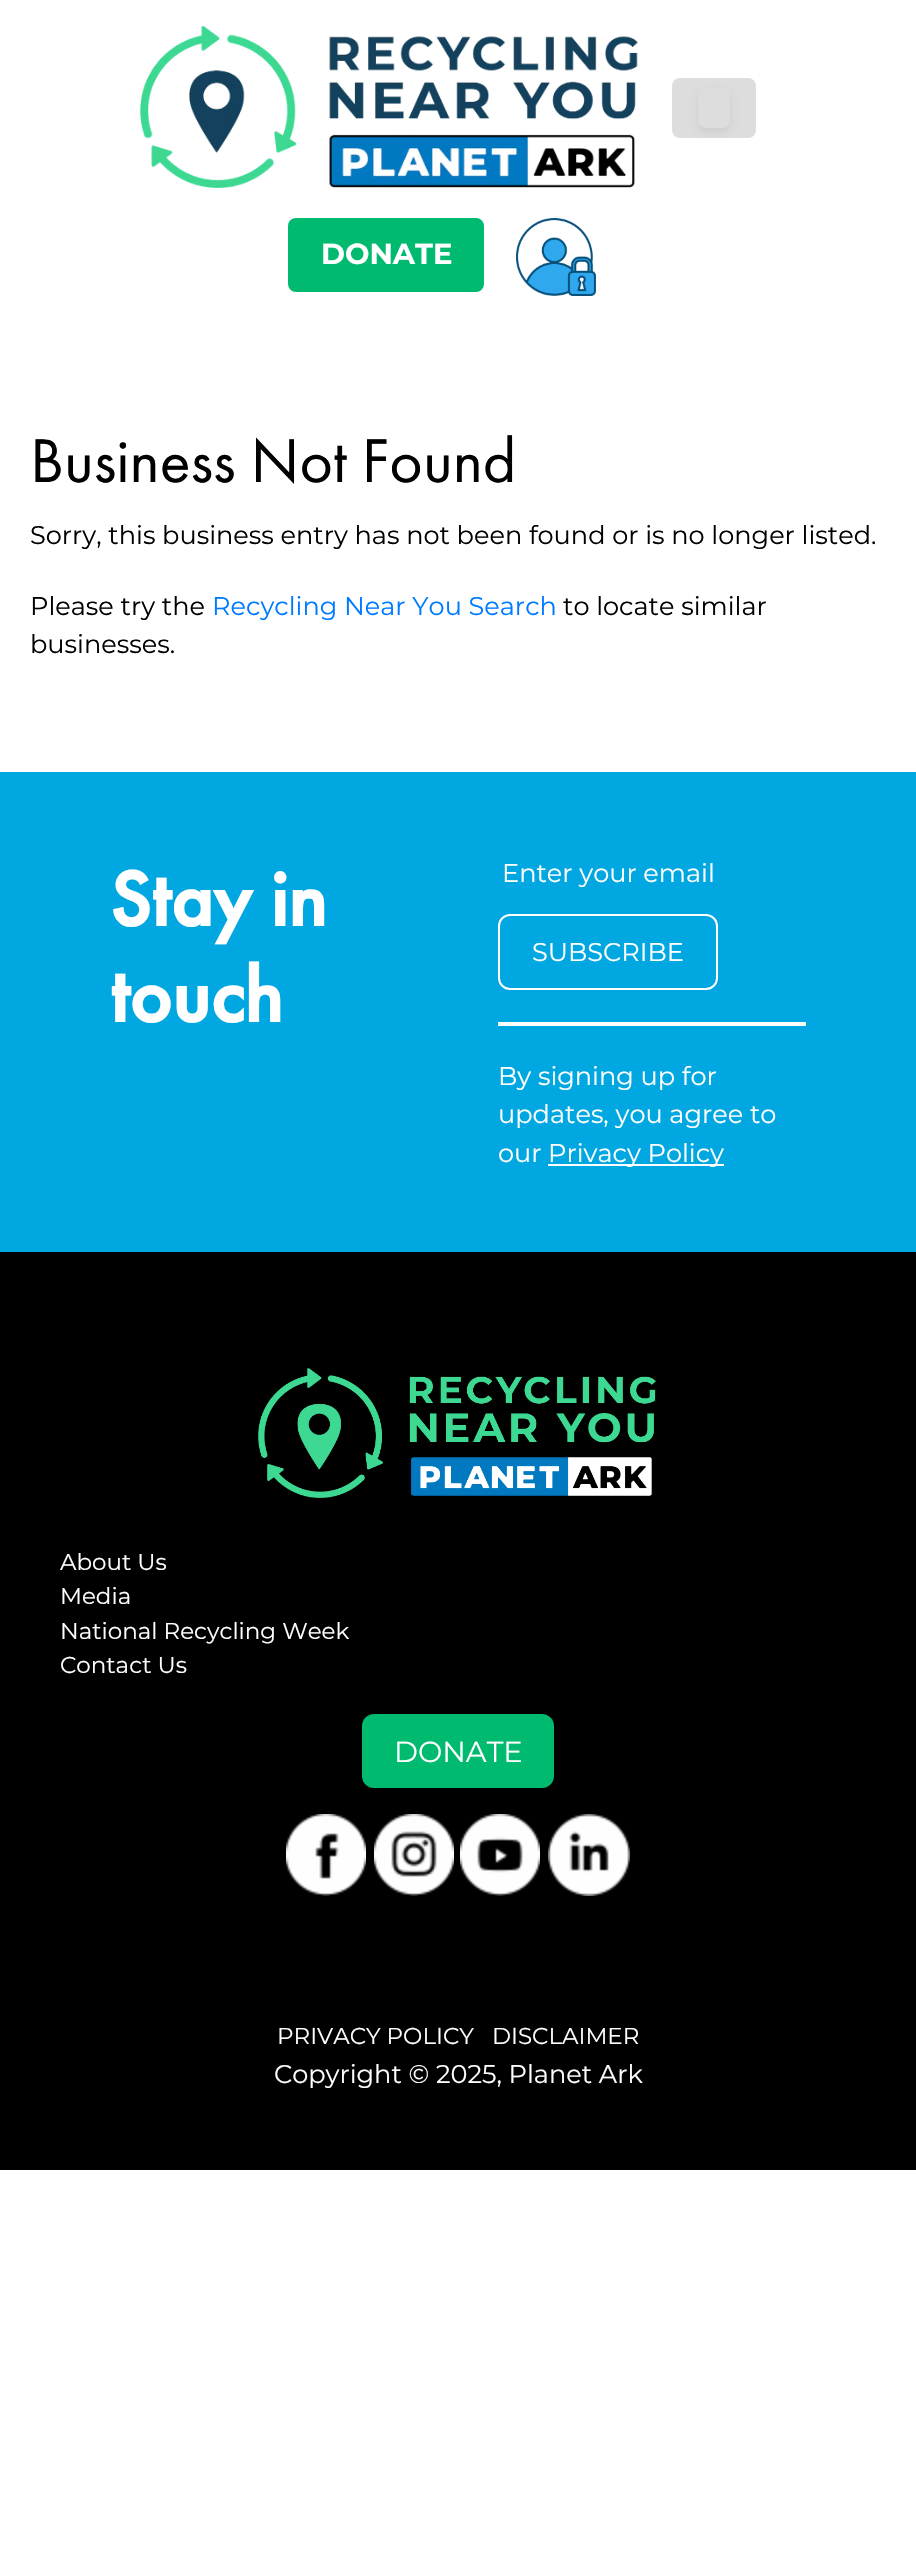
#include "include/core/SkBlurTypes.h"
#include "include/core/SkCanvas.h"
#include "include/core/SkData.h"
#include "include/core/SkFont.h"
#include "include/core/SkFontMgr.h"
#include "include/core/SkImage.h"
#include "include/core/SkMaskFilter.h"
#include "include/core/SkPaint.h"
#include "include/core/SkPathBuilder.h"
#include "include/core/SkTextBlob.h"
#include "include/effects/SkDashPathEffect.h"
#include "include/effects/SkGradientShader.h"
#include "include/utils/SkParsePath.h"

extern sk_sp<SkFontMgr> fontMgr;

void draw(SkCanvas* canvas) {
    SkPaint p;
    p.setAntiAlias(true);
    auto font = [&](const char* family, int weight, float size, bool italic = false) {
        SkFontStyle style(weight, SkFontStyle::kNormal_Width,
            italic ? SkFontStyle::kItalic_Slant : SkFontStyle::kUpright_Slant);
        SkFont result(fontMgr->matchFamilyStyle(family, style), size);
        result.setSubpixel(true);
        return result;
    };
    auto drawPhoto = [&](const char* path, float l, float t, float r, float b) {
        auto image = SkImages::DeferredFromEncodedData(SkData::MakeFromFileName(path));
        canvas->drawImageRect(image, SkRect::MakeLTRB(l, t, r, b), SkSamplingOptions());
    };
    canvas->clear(0xFFFFFFFF);
    drawPhoto("media/1.png", 140, 26, 638, 188);
    p.setColor(0xFFDDDDDD);
    canvas->drawRoundRect(SkRect::MakeLTRB(672, 78, 756, 138), 8, 8, p);
    p.setColor(0x12000000);
    p.setMaskFilter(SkMaskFilter::MakeBlur(kNormal_SkBlurStyle, 4));
    canvas->drawRoundRect(SkRect::MakeLTRB(698, 92, 730, 132), 8, 8, p);
    p.setMaskFilter(nullptr);
    p.setColor(0xFFDDDDDD);
    canvas->drawRoundRect(SkRect::MakeLTRB(698, 88, 730, 128), 8, 8, p);
    p.setColor(0xFF00BB6F);
    canvas->drawRoundRect(SkRect::MakeLTRB(288, 218, 484, 292), 8, 8, p);
    auto font1 = font("Montserrat", 700, 29);
    p.setColor(0xFFFFFFFF);
    canvas->drawString("DONATE", 321, 264, font1, p);
    drawPhoto("media/2.png", 516, 218, 596, 296);
    auto font2 = font("Futura PT", 400, 64);
    p.setColor(0xFF000000);
    canvas->drawString("Business Not Found", 30, 482, font2, p);
    auto font3 = font("Montserrat", 400, 25.6f);
    canvas->drawString("Sorry, this business entry has not been found or is no longer listed.", 30, 544, font3, p);
    canvas->drawString("Please try the", 30, 615, font3, p);
    p.setColor(0xFF007BFF);
    canvas->drawString("Recycling Near You Search", 212, 615, font3, p);
    p.setColor(0xFF000000);
    canvas->drawString("to locate similar", 563, 615, font3, p);
    canvas->drawString("businesses.", 30, 653, font3, p);
    p.setColor(0xFF01A7E1);
    canvas->drawRect(SkRect::MakeLTRB(0, 772, 916, 1252), p);
    auto font4 = font("Futura PT", 700, 80);
    p.setColor(0xFFFFFFFF);
    canvas->drawString("Stay in", 110, 926, font4, p);
    canvas->drawString("touch", 110, 1022, font4, p);
    canvas->drawString("Enter your email", 502, 882, font3, p);
    p.setStyle(SkPaint::kStroke_Style);
    p.setStrokeWidth(2);
    canvas->drawRoundRect(SkRect::MakeLTRB(499, 915, 717, 989), 11, 11, p);
    p.setStyle(SkPaint::kFill_Style);
    canvas->drawString("SUBSCRIBE", 532, 961, font3, p);
    canvas->drawRect(SkRect::MakeLTRB(498, 1022, 806, 1026), p);
    {
        const struct { const char* s; float x, y; } items[] = {
            {"By signing up for", 498, 1085},
            {"updates, you agree to", 498, 1123},
            {"our", 498, 1162},
        };
        for (auto [s, x, y] : items) {
            canvas->drawString(s, x, y, font3, p);
        }
    }
    canvas->drawRect(SkRect::MakeLTRB(548, 1164, 724, 1166), p);
    canvas->drawString("Privacy Policy", 548, 1162, font3, p);
    p.setColor(0xFF000000);
    canvas->drawRect(SkRect::MakeLTRB(0, 1252, 916, 2170), p);
    drawPhoto("media/3.png", 258, 1368, 656, 1498);
    auto font5 = font("Montserrat", 400, 23);
    p.setColor(0xFFFFFFFF);
    {
        const struct { const char* s; float x, y; } items[] = {
            {"About Us", 60, 1570},
            {"Media", 60, 1604},
            {"National Recycling Week", 60, 1639},
            {"Contact Us", 60, 1673},
        };
        for (auto [s, x, y] : items) {
            canvas->drawString(s, x, y, font5, p);
        }
    }
    p.setColor(0xFF00BB6F);
    canvas->drawRoundRect(SkRect::MakeLTRB(362, 1714, 554, 1788), 12, 12, p);
    auto font6 = font("Montserrat", 400, 29);
    p.setColor(0xFFFFFFFF);
    canvas->drawString("DONATE", 394, 1762, font6, p);
    drawPhoto("media/4.png", 286, 1814, 366, 1896);
    drawPhoto("media/5.png", 374, 1814, 454, 1896);
    drawPhoto("media/6.png", 460, 1814, 540, 1896);
    drawPhoto("media/7.png", 548, 1814, 630, 1896);
    canvas->drawString("PRIVACY POLICY", 277, 2044, font5, p);
    canvas->drawString("DISCLAIMER", 492, 2044, font5, p);
    canvas->drawString("Copyright © 2025, Planet Ark", 274, 2083, font3, p);
}
